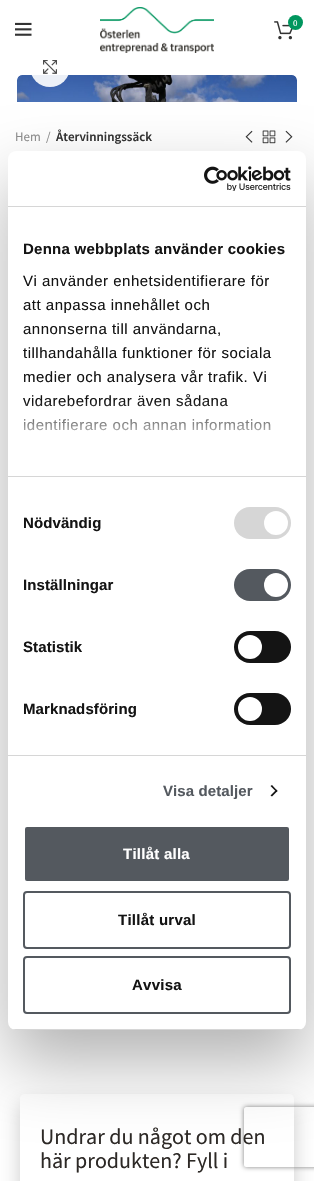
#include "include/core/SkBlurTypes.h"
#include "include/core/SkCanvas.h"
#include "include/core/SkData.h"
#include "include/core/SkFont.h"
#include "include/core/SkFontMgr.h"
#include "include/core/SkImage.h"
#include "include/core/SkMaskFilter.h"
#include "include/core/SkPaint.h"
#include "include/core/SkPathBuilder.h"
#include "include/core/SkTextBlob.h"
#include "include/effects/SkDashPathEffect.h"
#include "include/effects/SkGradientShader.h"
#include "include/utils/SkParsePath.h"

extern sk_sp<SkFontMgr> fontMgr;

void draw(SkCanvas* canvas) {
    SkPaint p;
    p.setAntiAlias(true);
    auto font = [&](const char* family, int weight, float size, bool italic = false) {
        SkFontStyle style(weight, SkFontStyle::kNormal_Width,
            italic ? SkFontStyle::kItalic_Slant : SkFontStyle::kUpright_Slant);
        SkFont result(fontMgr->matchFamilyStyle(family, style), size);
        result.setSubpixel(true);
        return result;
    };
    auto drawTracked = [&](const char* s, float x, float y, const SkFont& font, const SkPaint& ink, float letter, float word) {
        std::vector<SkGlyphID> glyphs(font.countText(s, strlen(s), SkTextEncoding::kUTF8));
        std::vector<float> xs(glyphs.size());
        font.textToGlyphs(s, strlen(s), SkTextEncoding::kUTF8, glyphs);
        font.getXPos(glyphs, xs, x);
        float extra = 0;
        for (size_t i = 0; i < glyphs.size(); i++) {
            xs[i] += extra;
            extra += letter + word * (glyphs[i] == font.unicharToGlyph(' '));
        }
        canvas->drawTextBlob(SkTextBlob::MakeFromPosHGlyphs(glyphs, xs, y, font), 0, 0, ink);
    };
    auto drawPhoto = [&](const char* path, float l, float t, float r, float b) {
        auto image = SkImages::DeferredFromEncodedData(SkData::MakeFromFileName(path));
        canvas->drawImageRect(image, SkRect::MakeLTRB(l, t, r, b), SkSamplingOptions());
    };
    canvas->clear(0xFFFFFFFF);
    drawPhoto("media/1.png", 15, 22, 32, 36);
    drawPhoto("media/2.png", 100, 7, 214, 53);
    drawPhoto("media/3.png", 274, 21, 293, 40);
    p.setColor(0xFF00965E);
    canvas->drawCircle(295.5f, 22.5f, 7.5f, p);
    auto font1 = font("Source Sans Pro", 400, 9);
    p.setColor(0xFFFFFFFF);
    canvas->drawString("0", 293, 26, font1, p);
    drawPhoto("media/5.png", 17, 75, 297, 102);
    p.setColor(0xE6FFFFFF);
    canvas->drawCircle(50, 67, 20, p);
    drawPhoto("media/4.png", 43, 60, 57, 74);
    auto font2 = font("Source Sans Pro", 400, 13);
    p.setColor(0xFF8E8E8E);
    canvas->drawString("Hem", 15, 141, font2, p);
    canvas->drawString("/", 46, 141, font2, p);
    auto font3 = font("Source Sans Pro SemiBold", 600, 13);
    p.setColor(0xFF333333);
    canvas->drawString("Återvinningssäck", 56, 141, font3, p);
    drawPhoto("media/6.png", 245, 130, 253, 143);
    drawPhoto("media/7.png", 262, 130, 276, 144);
    drawPhoto("media/8.png", 285, 130, 293, 143);
    canvas->save();
    canvas->clipPath(SkPathBuilder(SkPathFillType::kEvenOdd).moveTo(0, 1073).lineTo(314, 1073).lineTo(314, 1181).lineTo(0, 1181).close().moveTo(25, 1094).lineTo(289, 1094).cubicTo(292, 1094, 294, 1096, 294, 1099).lineTo(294, 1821).cubicTo(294, 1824, 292, 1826, 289, 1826).lineTo(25, 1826).cubicTo(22, 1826, 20, 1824, 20, 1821).lineTo(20, 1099).cubicTo(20, 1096, 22, 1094, 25, 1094).close().detach(), true);
    p.setColor(0x33000000);
    p.setMaskFilter(SkMaskFilter::MakeBlur(kNormal_SkBlurStyle, 10));
    canvas->drawRoundRect(SkRect::MakeLTRB(20, 1104, 294, 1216), 5, 5, p);
    p.setMaskFilter(nullptr);
    canvas->restore();
    auto font4 = font("Source Sans Pro", 400, 22);
    p.setColor(0xFF2D2926);
    canvas->drawString("Undrar du något om den", 40, 1144, font4, p);
    canvas->drawString("här produkten? Fyll i", 40, 1168, font4, p);
    canvas->save();
    canvas->clipPath(SkPathBuilder(SkPathFillType::kEvenOdd).moveTo(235, 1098).lineTo(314, 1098).lineTo(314, 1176).lineTo(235, 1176).close().moveTo(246, 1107).lineTo(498, 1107).cubicTo(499, 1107, 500, 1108, 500, 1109).lineTo(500, 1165).cubicTo(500, 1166, 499, 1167, 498, 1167).lineTo(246, 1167).cubicTo(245, 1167, 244, 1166, 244, 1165).lineTo(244, 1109).cubicTo(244, 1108, 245, 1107, 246, 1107).close().detach(), true);
    p.setColor(0xFF808080);
    p.setMaskFilter(SkMaskFilter::MakeBlur(kNormal_SkBlurStyle, 2.5f));
    canvas->drawRoundRect(SkRect::MakeLTRB(244, 1107, 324, 1167), 2, 2, p);
    p.setMaskFilter(nullptr);
    canvas->restore();
    p.setColor(0x4D000000);
    p.setMaskFilter(SkMaskFilter::MakeBlur(kNormal_SkBlurStyle, 34));
    canvas->drawRoundRect(SkRect::MakeLTRB(8, 183, 306, 1062), 8, 8, p);
    p.setMaskFilter(nullptr);
    p.setColor(0xFFFFFFFF);
    canvas->drawRoundRect(SkRect::MakeLTRB(8, 151, 306, 1030), 8, 8, p);
    p.setColor(0xFFD6D6D6);
    canvas->drawRect(SkRect::MakeLTRB(8, 206, 306, 207), p);
    drawPhoto("media/9.png", 204, 166, 291, 191);
    canvas->drawRect(SkRect::MakeLTRB(8, 476, 306, 477), p);
    auto font5 = font("Liberation Sans", 700, 15);
    p.setColor(0xFF141414);
    drawTracked("Denna webbplats använder cookies", 23, 254, font5, p, 0.25f, 0);
    auto font6 = font("Liberation Sans", 400, 15);
    {
        const struct { const char* s; float x, y; } items[] = {
            {"Vi använder enhetsidentifierare för", 23, 286},
            {"att anpassa innehållet och", 23, 310},
            {"annonserna till användarna,", 23, 334},
            {"tillhandahålla funktioner för sociala", 23, 358},
            {"medier och analysera vår trafik. Vi", 23, 382},
            {"vidarebefordrar även sådana", 23, 406},
            {"identifierare och annan information", 23, 430},
        };
        for (auto [s, x, y] : items) {
            drawTracked(s, x, y, font6, p, 0.5f, 0);
        }
    }
    {
        const SkColor colors[] = {0xFFFFFFFF, 0xCCFFFFFF, 0x00FFFFFF};
        const float stops[] = {0, 0.5f, 1};
        const SkPoint ends[] = {{151, 476}, {151, 401}};
        p.setShader(SkGradientShader::MakeLinear(ends, colors, stops, 3, SkTileMode::kClamp));
        p.setAlpha(255);
    }
    canvas->drawRect(SkRect::MakeLTRB(24, 402, 270, 431), p);
    p.setShader(nullptr);
    p.setColor(0xFFD6D6D6);
    canvas->drawRect(SkRect::MakeLTRB(8, 755, 306, 756), p);
    p.setColor(0xFF141414);
    drawTracked("Nödvändig", 23, 528, font5, p, 0.1f, 0);
    p.setColor(0xFFD6D6D6);
    canvas->drawRoundRect(SkRect::MakeLTRB(234, 507, 291, 539), 16, 16, p);
    p.setColor(0xFFFFFFFF);
    canvas->drawCircle(276, 523, 12, p);
    p.setColor(0xFF141414);
    drawTracked("Inställningar", 23, 590, font5, p, 0.1f, 0);
    p.setColor(0xFF54595F);
    canvas->drawRoundRect(SkRect::MakeLTRB(234, 569, 291, 601), 16, 16, p);
    p.setColor(0xFFFFFFFF);
    canvas->drawCircle(276, 585, 12, p);
    p.setColor(0xFF141414);
    drawTracked("Statistik", 23, 652, font5, p, 0.1f, 0);
    canvas->drawRoundRect(SkRect::MakeLTRB(234, 631, 291, 663), 16, 16, p);
    p.setColor(0xFFFFFFFF);
    canvas->drawCircle(250, 647, 12, p);
    p.setColor(0xFF141414);
    drawTracked("Marknadsföring", 23, 714, font5, p, 0.1f, 0);
    canvas->drawRoundRect(SkRect::MakeLTRB(234, 693, 291, 725), 16, 16, p);
    p.setColor(0xFFFFFFFF);
    canvas->drawCircle(250, 709, 12, p);
    p.setColor(0xFF54595F);
    drawTracked("Visa detaljer", 163, 796, font5, p, 0.1f, 0);
    p.setColor(0xFF141414);
    canvas->drawPath(SkPathBuilder().moveTo(272, 785).lineTo(277.5f, 791).lineTo(276.5f, 792).lineTo(270.5f, 786).close().detach(), p);
    canvas->drawPath(SkPathBuilder().moveTo(276.5f, 789.5f).lineTo(277.5f, 791).lineTo(272, 796.5f).lineTo(270.5f, 795.5f).close().detach(), p);
    canvas->save();
    canvas->clipPath(SkPathBuilder().moveTo(16, 151).lineTo(298, 151).cubicTo(302.5f, 151, 306, 154.5f, 306, 159).lineTo(306, 1022).cubicTo(306, 1026.5f, 302.5f, 1030, 298, 1030).lineTo(16, 1030).cubicTo(11.5f, 1030, 8, 1026.5f, 8, 1022).lineTo(8, 159).cubicTo(8, 154.5f, 11.5f, 151, 16, 151).close().detach(), true);
    p.setColor(0xFFD6D6D6);
    canvas->drawRect(SkRect::MakeLTRB(8, 1029, 306, 1030), p);
    canvas->restore();
    p.setColor(0xFF54595F);
    canvas->drawRoundRect(SkRect::MakeLTRB(24, 826, 290, 882), 3, 3, p);
    p.setStyle(SkPaint::kStroke_Style);
    p.setStrokeWidth(2);
    p.setColor(0xFFFFFFFF);
    canvas->drawRoundRect(SkRect::MakeLTRB(24, 826, 290, 882), 3, 3, p);
    p.setStyle(SkPaint::kFill_Style);
    drawTracked("Tillåt alla", 123, 859, font5, p, 0.25f, 0);
    p.setStyle(SkPaint::kStroke_Style);
    p.setColor(0xFF54595F);
    canvas->drawRoundRect(SkRect::MakeLTRB(24, 892, 290, 948), 3, 3, p);
    p.setStyle(SkPaint::kFill_Style);
    p.setColor(0xFF141414);
    drawTracked("Tillåt urval", 118, 925, font5, p, 0.25f, 0);
    p.setStyle(SkPaint::kStroke_Style);
    p.setColor(0xFF54595F);
    canvas->drawRoundRect(SkRect::MakeLTRB(24, 957, 290, 1013), 3, 3, p);
    p.setStyle(SkPaint::kFill_Style);
    p.setColor(0xFF141414);
    drawTracked("Avvisa", 132, 990, font5, p, 0.25f, 0);
}
